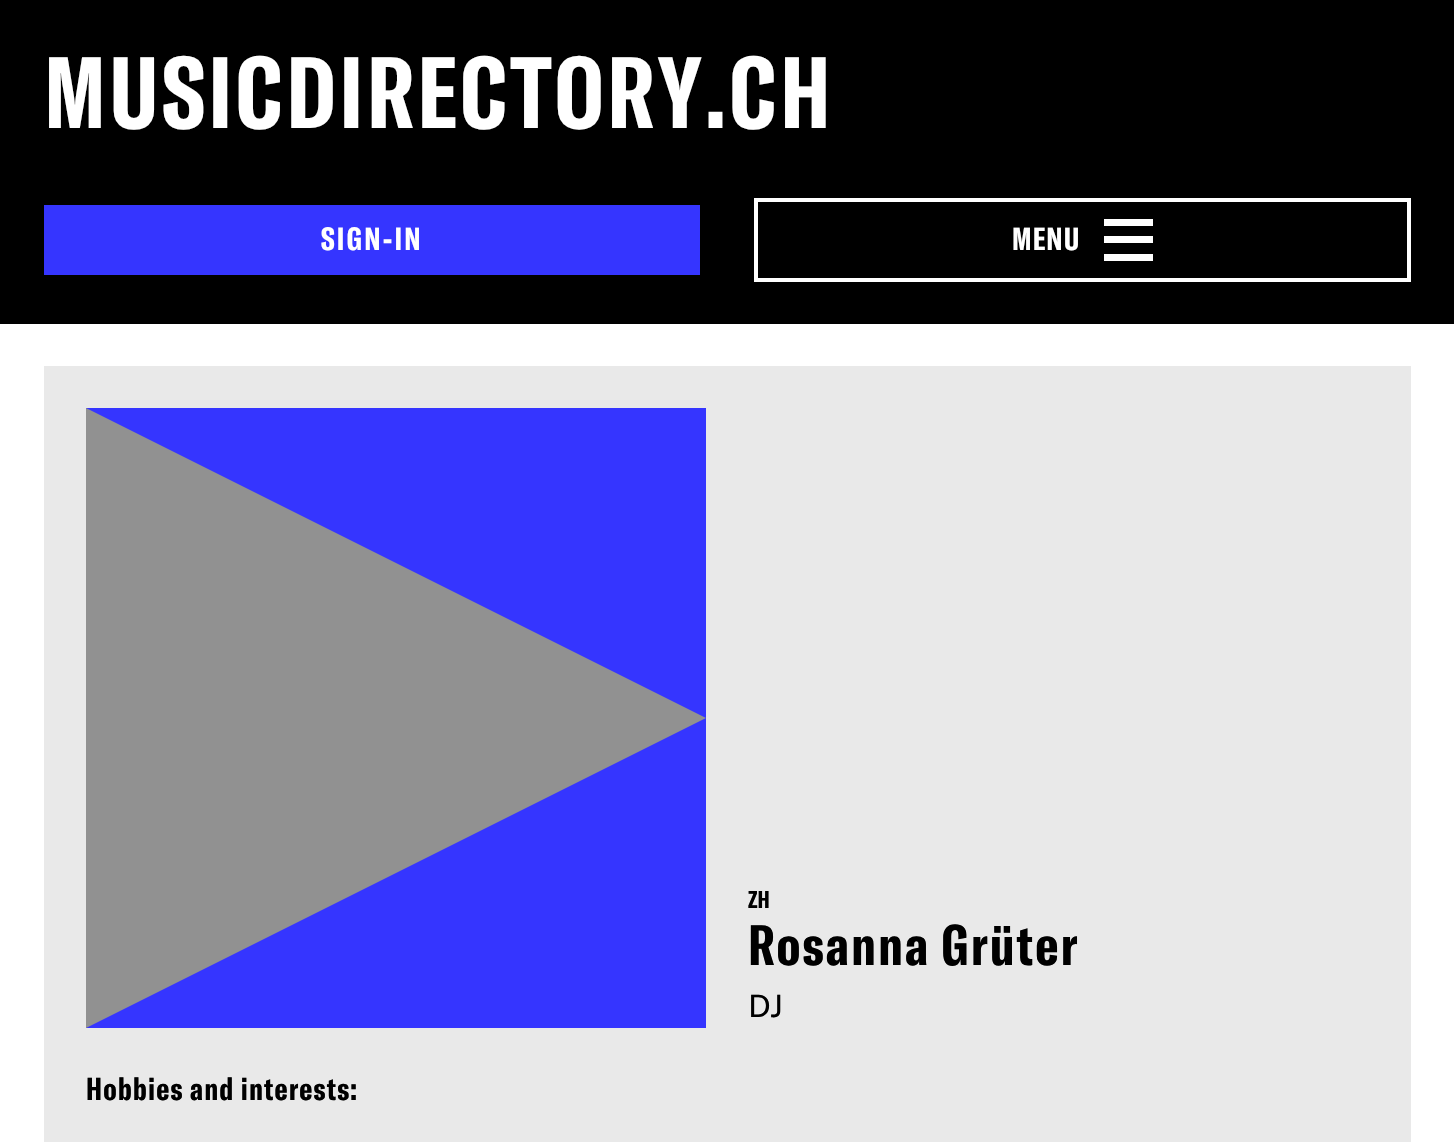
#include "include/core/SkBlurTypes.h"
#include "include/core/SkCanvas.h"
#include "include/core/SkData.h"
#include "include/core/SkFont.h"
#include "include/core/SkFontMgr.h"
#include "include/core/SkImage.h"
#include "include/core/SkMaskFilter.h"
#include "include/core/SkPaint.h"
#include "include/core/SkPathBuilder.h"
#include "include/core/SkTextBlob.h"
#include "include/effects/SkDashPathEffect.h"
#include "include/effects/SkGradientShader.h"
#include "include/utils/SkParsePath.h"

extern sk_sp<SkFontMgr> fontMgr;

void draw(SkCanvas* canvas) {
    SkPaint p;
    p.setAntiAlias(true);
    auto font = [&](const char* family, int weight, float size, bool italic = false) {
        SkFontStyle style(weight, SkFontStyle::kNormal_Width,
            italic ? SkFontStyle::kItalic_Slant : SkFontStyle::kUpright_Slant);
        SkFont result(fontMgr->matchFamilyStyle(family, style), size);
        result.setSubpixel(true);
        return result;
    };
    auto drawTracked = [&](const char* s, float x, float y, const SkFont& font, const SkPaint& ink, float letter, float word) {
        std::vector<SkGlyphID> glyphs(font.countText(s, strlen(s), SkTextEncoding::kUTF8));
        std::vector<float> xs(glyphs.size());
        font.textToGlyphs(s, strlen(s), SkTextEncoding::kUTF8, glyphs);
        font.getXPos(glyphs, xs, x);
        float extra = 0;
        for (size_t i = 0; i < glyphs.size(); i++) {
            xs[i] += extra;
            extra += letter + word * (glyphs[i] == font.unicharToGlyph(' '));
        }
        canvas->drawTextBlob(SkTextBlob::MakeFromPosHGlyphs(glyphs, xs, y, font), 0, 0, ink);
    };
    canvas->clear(0xFFFFFFFF);
    p.setColor(0xFF000000);
    canvas->drawRect(SkRect::MakeLTRB(0, 0, 1454, 324), p);
    auto font1 = font("GT America", 700, 99.5f);
    p.setColor(0xFFFFFFFF);
    drawTracked("MUSICDIRECTORY.CH", 44, 128, font1, p, 3.5f, 0);
    p.setColor(0xFF3535FF);
    canvas->drawRect(SkRect::MakeLTRB(44, 205, 700, 275), p);
    auto font2 = font("GT America", 700, 31.5f);
    p.setColor(0xFFFFFFFF);
    drawTracked("SIGN-IN", 321, 250, font2, p, 2.25f, 0);
    p.setStyle(SkPaint::kStroke_Style);
    p.setStrokeWidth(4);
    canvas->drawRect(SkRect::MakeLTRB(756, 200, 1409, 280), p);
    p.setStyle(SkPaint::kFill_Style);
    drawTracked("MENU", 1012, 250, font2, p, 1.1f, 0);
    {
        const struct { float l, t, r, b; SkColor color; } items[] = {
            {1104, 219, 1153, 226, 0xFFFFFFFF},
            {1104, 236, 1153, 243, 0xFFFFFFFF},
            {1104, 254, 1153, 261, 0xFFFFFFFF},
            {44, 366, 1411, 1142, 0xFFE9E9E9},
            {86, 408, 706, 1028, 0xFF3535FF},
        };
        for (auto [l, t, r, b, color] : items) {
            p.setColor(color);
            canvas->drawRect(SkRect::MakeLTRB(l, t, r, b), p);
        }
    }
    p.setColor(0xFF919191);
    canvas->drawPath(SkPathBuilder(SkPathFillType::kEvenOdd).moveTo(706, 718).lineTo(86, 1028).lineTo(86, 408).close().detach(), p);
    auto font3 = font("GT America", 700, 24);
    p.setColor(0xFF000000);
    canvas->drawString("ZH", 748, 908, font3, p);
    auto font4 = font("GT America", 700, 56);
    drawTracked("Rosanna Grüter", 748, 965, font4, p, 2, 0);
    auto font5 = font("GT America", 400, 31.5f);
    canvas->drawString("DJ", 748, 1017, font5, p);
    drawTracked("Hobbies and interests:", 86, 1100, font2, p, 1.1f, 0);
}
